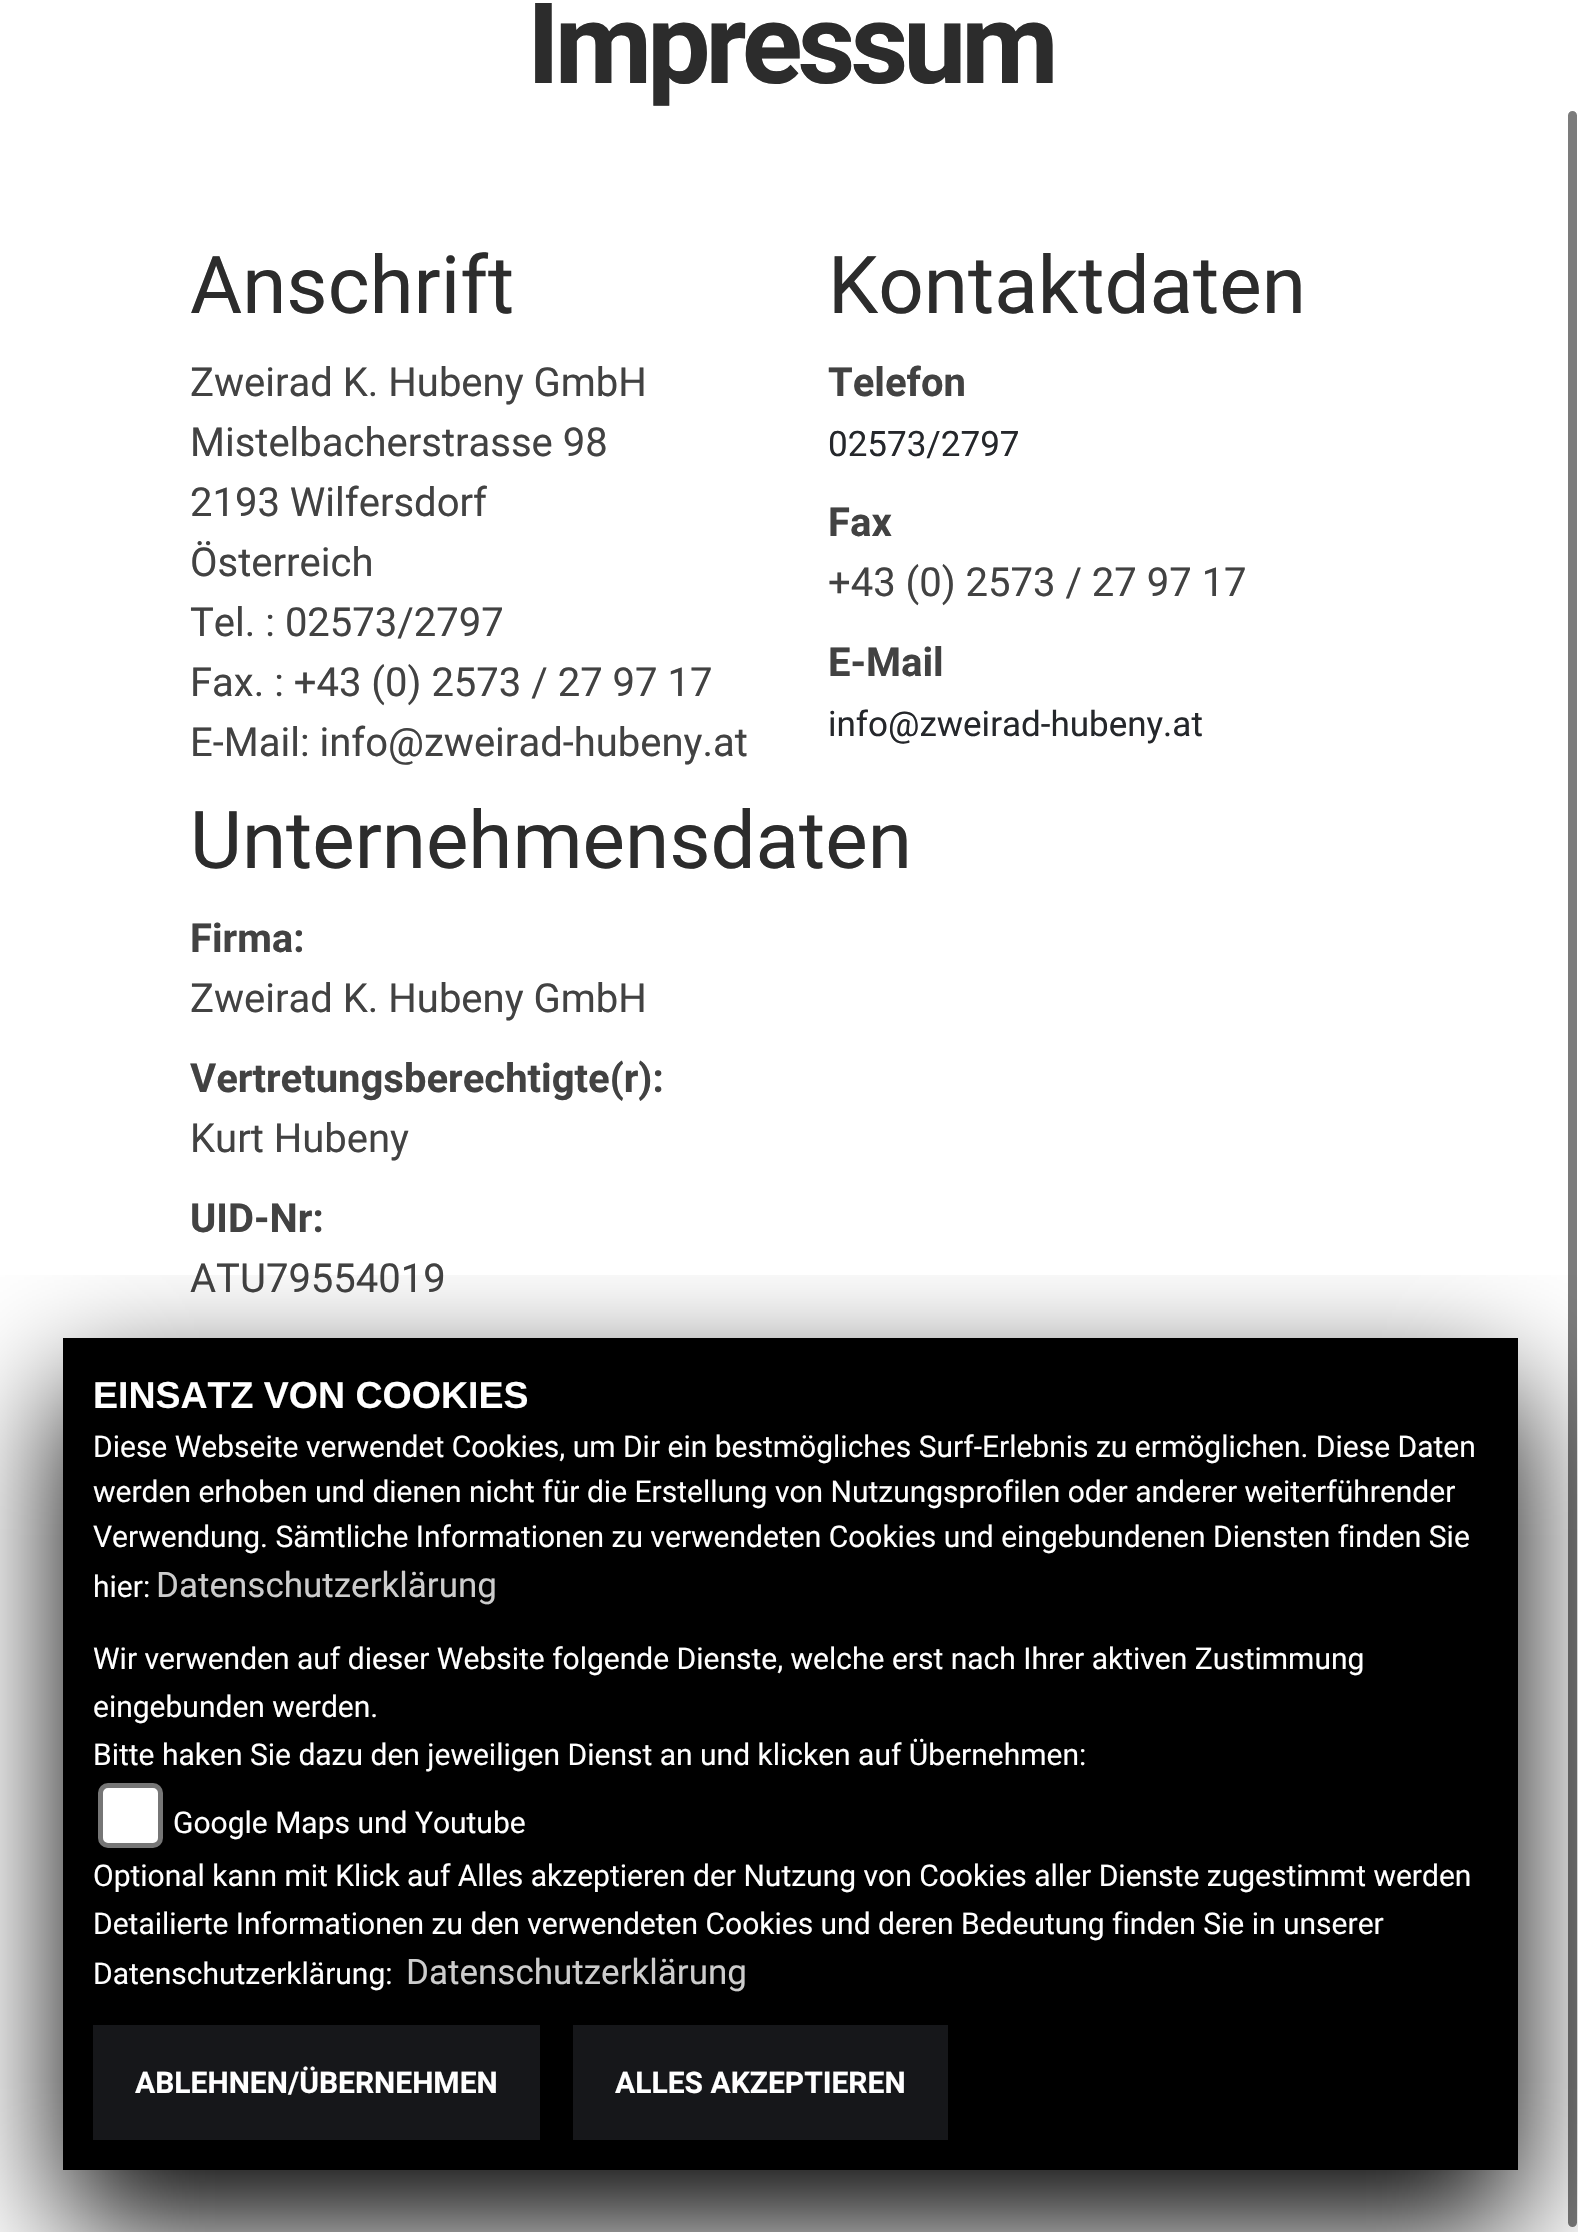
#include "include/core/SkBlurTypes.h"
#include "include/core/SkCanvas.h"
#include "include/core/SkData.h"
#include "include/core/SkFont.h"
#include "include/core/SkFontMgr.h"
#include "include/core/SkImage.h"
#include "include/core/SkMaskFilter.h"
#include "include/core/SkPaint.h"
#include "include/core/SkPathBuilder.h"
#include "include/core/SkTextBlob.h"
#include "include/effects/SkDashPathEffect.h"
#include "include/effects/SkGradientShader.h"
#include "include/utils/SkParsePath.h"

extern sk_sp<SkFontMgr> fontMgr;

void draw(SkCanvas* canvas) {
    SkPaint p;
    p.setAntiAlias(true);
    auto font = [&](const char* family, int weight, float size, bool italic = false) {
        SkFontStyle style(weight, SkFontStyle::kNormal_Width,
            italic ? SkFontStyle::kItalic_Slant : SkFontStyle::kUpright_Slant);
        SkFont result(fontMgr->matchFamilyStyle(family, style), size);
        result.setSubpixel(true);
        return result;
    };
    auto drawTracked = [&](const char* s, float x, float y, const SkFont& font, const SkPaint& ink, float letter, float word) {
        std::vector<SkGlyphID> glyphs(font.countText(s, strlen(s), SkTextEncoding::kUTF8));
        std::vector<float> xs(glyphs.size());
        font.textToGlyphs(s, strlen(s), SkTextEncoding::kUTF8, glyphs);
        font.getXPos(glyphs, xs, x);
        float extra = 0;
        for (size_t i = 0; i < glyphs.size(); i++) {
            xs[i] += extra;
            extra += letter + word * (glyphs[i] == font.unicharToGlyph(' '));
        }
        canvas->drawTextBlob(SkTextBlob::MakeFromPosHGlyphs(glyphs, xs, y, font), 0, 0, ink);
    };
    canvas->clear(0xFFFFFFFF);
    auto font1 = font("Roboto", 700, 112.5f);
    p.setColor(0xFF2C2C2C);
    drawTracked("Impressum", 527, 83, font1, p, -5, 0);
    auto font2 = font("Roboto", 400, 80);
    canvas->drawString("Anschrift", 190, 313, font2, p);
    auto font3 = font("Roboto", 400, 40);
    p.setColor(0xFF424242);
    {
        const struct { const char* s; float x, y; } items[] = {
            {"Zweirad K. Hubeny GmbH", 190, 396},
            {"Mistelbacherstrasse 98", 190, 456},
            {"2193 Wilfersdorf", 190, 516},
            {"Österreich", 190, 576},
            {"Tel. : 02573/2797", 190, 636},
            {"Fax. : +43 (0) 2573 / 27 97 17", 190, 696},
            {"E-Mail: info@zweirad-hubeny.at", 190, 756},
        };
        for (auto [s, x, y] : items) {
            canvas->drawString(s, x, y, font3, p);
        }
    }
    p.setColor(0xFF2C2C2C);
    canvas->drawString("Kontaktdaten", 828, 313, font2, p);
    auto font4 = font("Roboto", 700, 40);
    p.setColor(0xFF424242);
    canvas->drawString("Telefon", 828, 396, font4, p);
    auto font5 = font("Roboto", 400, 35);
    p.setColor(0xFF25272B);
    canvas->drawString("02573/2797", 828, 456, font5, p);
    p.setColor(0xFF424242);
    canvas->drawString("Fax", 828, 536, font4, p);
    canvas->drawString("+43 (0) 2573 / 27 97 17", 828, 596, font3, p);
    canvas->drawString("E-Mail", 828, 676, font4, p);
    p.setColor(0xFF25272B);
    canvas->drawString("info@zweirad-hubeny.at", 828, 736, font5, p);
    p.setColor(0xFF2C2C2C);
    canvas->drawString("Unternehmensdaten", 190, 868, font2, p);
    p.setColor(0xFF424242);
    canvas->drawString("Firma:", 190, 952, font4, p);
    canvas->drawString("Zweirad K. Hubeny GmbH", 190, 1012, font3, p);
    canvas->drawString("Vertretungsberechtigte(r):", 190, 1092, font4, p);
    canvas->drawString("Kurt Hubeny", 190, 1152, font3, p);
    canvas->drawString("UID-Nr:", 190, 1232, font4, p);
    canvas->drawString("ATU79554019", 190, 1292, font3, p);
    p.setColor(0xFF7C7C7C);
    canvas->drawRoundRect(SkRect::MakeLTRB(1566.5f, 109.5f, 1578.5f, 2228.5f), 6, 6, p);
    p.setStyle(SkPaint::kStroke_Style);
    p.setStrokeWidth(3);
    p.setColor(0xFFFFFFFF);
    canvas->drawRoundRect(SkRect::MakeLTRB(1566.5f, 109.5f, 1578.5f, 2228.5f), 6, 6, p);
    canvas->save();
    canvas->clipRect(SkRect::MakeLTRB(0, 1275, 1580, 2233));
    p.setStyle(SkPaint::kFill_Style);
    p.setColor(0xFF000000);
    p.setMaskFilter(SkMaskFilter::MakeBlur(kNormal_SkBlurStyle, 62.5f));
    canvas->drawRect(SkRect::MakeLTRB(63, 1393, 1518, 2225), p);
    p.setMaskFilter(nullptr);
    canvas->restore();
    canvas->drawRect(SkRect::MakeLTRB(63, 1338, 1518, 2170), p);
    auto font6 = font("Liberation Sans", 700, 37.5f);
    p.setColor(0xFFFFFFFF);
    canvas->drawString("EINSATZ VON COOKIES", 93, 1408, font6, p);
    auto font7 = font("Roboto", 400, 30);
    {
        const struct { const char* s; float x, y; } items[] = {
            {"Diese Webseite verwendet Cookies, um Dir ein bestmögliches Surf-Erlebnis zu ermöglichen. Diese Daten", 93, 1457},
            {"werden erhoben und dienen nicht für die Erstellung von Nutzungsprofilen oder anderer weiterführender", 93, 1502},
            {"Verwendung. Sämtliche Informationen zu verwendeten Cookies und eingebundenen Diensten finden Sie", 93, 1547},
            {"hier:", 93, 1597},
        };
        for (auto [s, x, y] : items) {
            canvas->drawString(s, x, y, font7, p);
        }
    }
    p.setColor(0xFFCCCCCC);
    canvas->drawString("Datenschutzerklärung", 156, 1597, font5, p);
    p.setColor(0xFFFFFFFF);
    {
        const struct { const char* s; float x, y; } items[] = {
            {"Wir verwenden auf dieser Website folgende Dienste, welche erst nach Ihrer aktiven Zustimmung", 93, 1669},
            {"eingebunden werden.", 93, 1717},
            {"Bitte haken Sie dazu den jeweiligen Dienst an und klicken auf Übernehmen:", 93, 1765},
        };
        for (auto [s, x, y] : items) {
            canvas->drawString(s, x, y, font7, p);
        }
    }
    canvas->drawRoundRect(SkRect::MakeLTRB(100.5f, 1785.5f, 160.5f, 1845.5f), 7.5f, 7.5f, p);
    p.setStyle(SkPaint::kStroke_Style);
    p.setStrokeWidth(5);
    p.setColor(0xFF767676);
    canvas->drawRoundRect(SkRect::MakeLTRB(100.5f, 1785.5f, 160.5f, 1845.5f), 7.5f, 7.5f, p);
    p.setStyle(SkPaint::kFill_Style);
    p.setColor(0xFFFFFFFF);
    {
        const struct { const char* s; float x, y; } items[] = {
            {"Google Maps und Youtube", 173, 1833},
            {"Optional kann mit Klick auf Alles akzeptieren der Nutzung von Cookies aller Dienste zugestimmt werden", 93, 1886},
            {"Detailierte Informationen zu den verwendeten Cookies und deren Bedeutung finden Sie in unserer", 93, 1934},
            {"Datenschutzerklärung:", 93, 1984},
        };
        for (auto [s, x, y] : items) {
            canvas->drawString(s, x, y, font7, p);
        }
    }
    p.setColor(0xFFCCCCCC);
    canvas->drawString("Datenschutzerklärung", 406, 1984, font5, p);
    p.setColor(0xFF16171A);
    canvas->drawRect(SkRect::MakeLTRB(93, 2025, 540, 2140), p);
    auto font8 = font("Roboto", 700, 30);
    p.setColor(0xFFFFFFFF);
    canvas->drawString("ABLEHNEN/ÜBERNEHMEN", 135, 2093, font8, p);
    p.setColor(0xFF16171A);
    canvas->drawRect(SkRect::MakeLTRB(573, 2025, 948, 2140), p);
    p.setColor(0xFFFFFFFF);
    canvas->drawString("ALLES AKZEPTIEREN", 615, 2093, font8, p);
}
